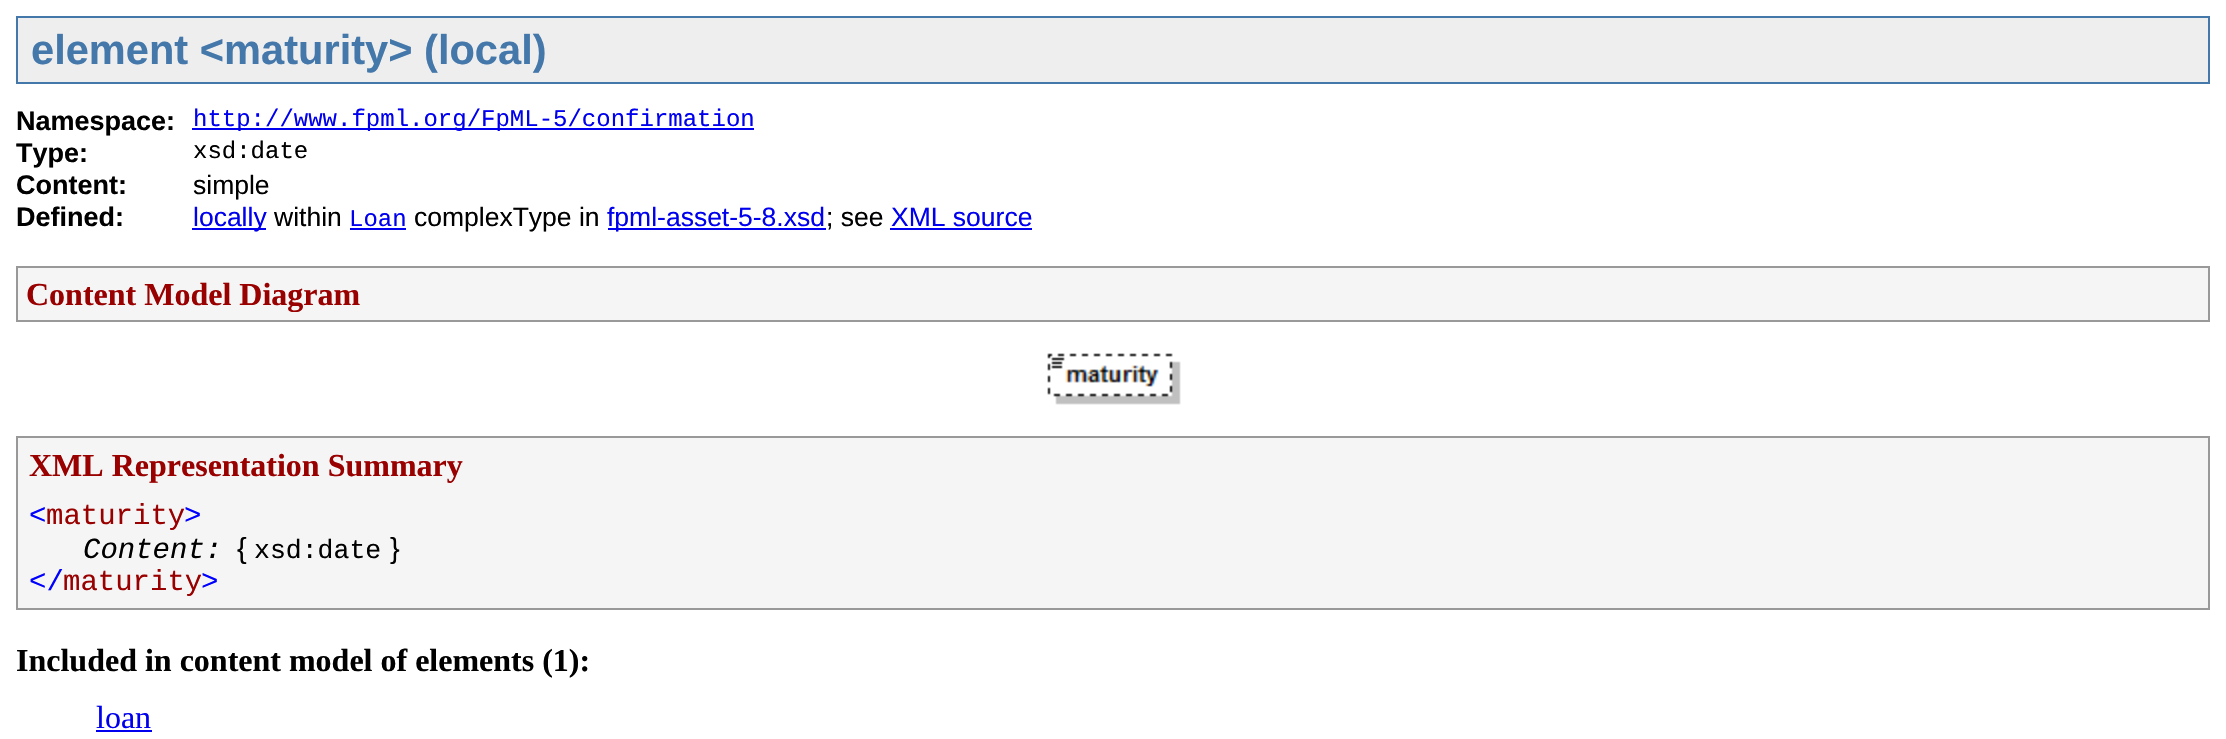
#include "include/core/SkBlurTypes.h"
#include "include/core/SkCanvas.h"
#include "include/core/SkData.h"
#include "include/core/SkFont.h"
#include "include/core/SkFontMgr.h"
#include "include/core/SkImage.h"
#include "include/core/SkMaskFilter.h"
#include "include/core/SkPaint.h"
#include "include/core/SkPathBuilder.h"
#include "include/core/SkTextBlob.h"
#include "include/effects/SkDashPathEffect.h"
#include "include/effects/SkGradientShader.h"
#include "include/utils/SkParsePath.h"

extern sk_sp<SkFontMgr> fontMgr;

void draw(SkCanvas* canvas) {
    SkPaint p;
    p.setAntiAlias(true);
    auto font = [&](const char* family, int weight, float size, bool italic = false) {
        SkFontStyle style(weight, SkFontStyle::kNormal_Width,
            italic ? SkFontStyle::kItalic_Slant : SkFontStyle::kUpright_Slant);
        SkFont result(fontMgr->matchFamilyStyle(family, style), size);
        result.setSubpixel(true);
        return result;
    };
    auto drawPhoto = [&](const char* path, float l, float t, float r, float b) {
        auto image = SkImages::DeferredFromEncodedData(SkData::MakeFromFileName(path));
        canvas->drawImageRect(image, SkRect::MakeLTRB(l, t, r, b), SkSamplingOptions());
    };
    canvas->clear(0xFFFFFFFF);
    p.setColor(0xFFEEEEEE);
    canvas->drawRect(SkRect::MakeLTRB(17, 17, 2209, 83), p);
    p.setStyle(SkPaint::kStroke_Style);
    p.setStrokeWidth(2);
    p.setColor(0xFF4477AA);
    canvas->drawRect(SkRect::MakeLTRB(17, 17, 2209, 83), p);
    auto font1 = font("Liberation Sans", 700, 41.6f);
    p.setStyle(SkPaint::kFill_Style);
    canvas->drawString("element <maturity> (local)", 31, 64, font1, p);
    auto font2 = font("Liberation Sans", 700, 27);
    p.setColor(0xFF000000);
    canvas->drawString("Namespace:", 16, 130, font2, p);
    p.setColor(0xFF0000EE);
    canvas->drawRect(SkRect::MakeLTRB(192, 128, 754, 130), p);
    auto font3 = font("Liberation Mono", 400, 24);
    canvas->drawString("http://www.fpml.org/FpML-5/confirmation", 193, 126, font3, p);
    p.setColor(0xFF000000);
    canvas->drawString("Type:", 16, 162, font2, p);
    canvas->drawString("xsd:date", 193, 158, font3, p);
    canvas->drawString("Content:", 16, 194, font2, p);
    auto font4 = font("Liberation Sans", 400, 26.5f);
    canvas->drawString("simple", 193, 194, font4, p);
    canvas->drawString("Defined:", 16, 226, font2, p);
    p.setColor(0xFF0000EE);
    canvas->drawRect(SkRect::MakeLTRB(192, 228, 266, 230), p);
    canvas->drawString("locally", 193, 226, font4, p);
    p.setColor(0xFF000000);
    canvas->drawString("within", 274, 226, font4, p);
    p.setColor(0xFF0000EE);
    canvas->drawString("Loan", 349, 226, font3, p);
    canvas->drawRect(SkRect::MakeLTRB(350, 228, 406, 230), p);
    p.setColor(0xFF000000);
    canvas->drawString("complexType in", 414, 226, font4, p);
    p.setColor(0xFF0000EE);
    canvas->drawRect(SkRect::MakeLTRB(608, 228, 826, 230), p);
    canvas->drawString("fpml-asset-5-8.xsd", 607, 226, font4, p);
    p.setColor(0xFF000000);
    canvas->drawString("; see", 826, 226, font4, p);
    p.setColor(0xFF0000EE);
    canvas->drawRect(SkRect::MakeLTRB(890, 228, 1032, 230), p);
    canvas->drawString("XML source", 891, 226, font4, p);
    p.setColor(0xFFF5F5F5);
    canvas->drawRect(SkRect::MakeLTRB(17, 267, 2209, 321), p);
    p.setStyle(SkPaint::kStroke_Style);
    p.setColor(0xFF999999);
    canvas->drawRect(SkRect::MakeLTRB(17, 267, 2209, 321), p);
    auto font5 = font("Liberation Serif", 700, 32);
    p.setStyle(SkPaint::kFill_Style);
    p.setColor(0xFF990000);
    canvas->drawString("Content Model Diagram", 26, 305, font5, p);
    drawPhoto("media/1.png", 1047, 353, 1181, 405);
    p.setColor(0xFFF5F5F5);
    canvas->drawRect(SkRect::MakeLTRB(17, 437, 2209, 609), p);
    p.setStyle(SkPaint::kStroke_Style);
    p.setColor(0xFF999999);
    canvas->drawRect(SkRect::MakeLTRB(17, 437, 2209, 609), p);
    p.setStyle(SkPaint::kFill_Style);
    p.setColor(0xFF990000);
    canvas->drawString("XML Representation Summary", 29, 476, font5, p);
    auto font6 = font("Liberation Mono", 400, 29);
    p.setColor(0xFF0000FF);
    canvas->drawString("<", 29, 524, font6, p);
    p.setColor(0xFF990000);
    canvas->drawString("maturity", 46, 524, font6, p);
    p.setColor(0xFF0000FF);
    canvas->drawString(">", 184, 524, font6, p);
    auto font7 = font("Liberation Mono", 400, 29, true);
    p.setColor(0xFF000000);
    canvas->drawString("Content:", 83, 558, font7, p);
    auto font8 = font("Liberation Sans", 400, 29);
    canvas->drawString("{", 237, 558, font8, p);
    auto font9 = font("Liberation Mono", 400, 26.5f);
    canvas->drawString("xsd:date", 254, 558, font9, p);
    canvas->drawString("}", 390, 558, font8, p);
    p.setColor(0xFF0000FF);
    canvas->drawString("</", 29, 590, font6, p);
    p.setColor(0xFF990000);
    canvas->drawString("maturity", 63, 590, font6, p);
    p.setColor(0xFF0000FF);
    canvas->drawString(">", 201, 590, font6, p);
    p.setColor(0xFF000000);
    canvas->drawString("Included in content model of elements (1):", 16, 671, font5, p);
    auto font10 = font("Liberation Serif", 400, 32);
    p.setColor(0xFF0000EE);
    canvas->drawString("loan", 96, 728, font10, p);
    canvas->drawRect(SkRect::MakeLTRB(96, 730, 152, 732), p);
}
